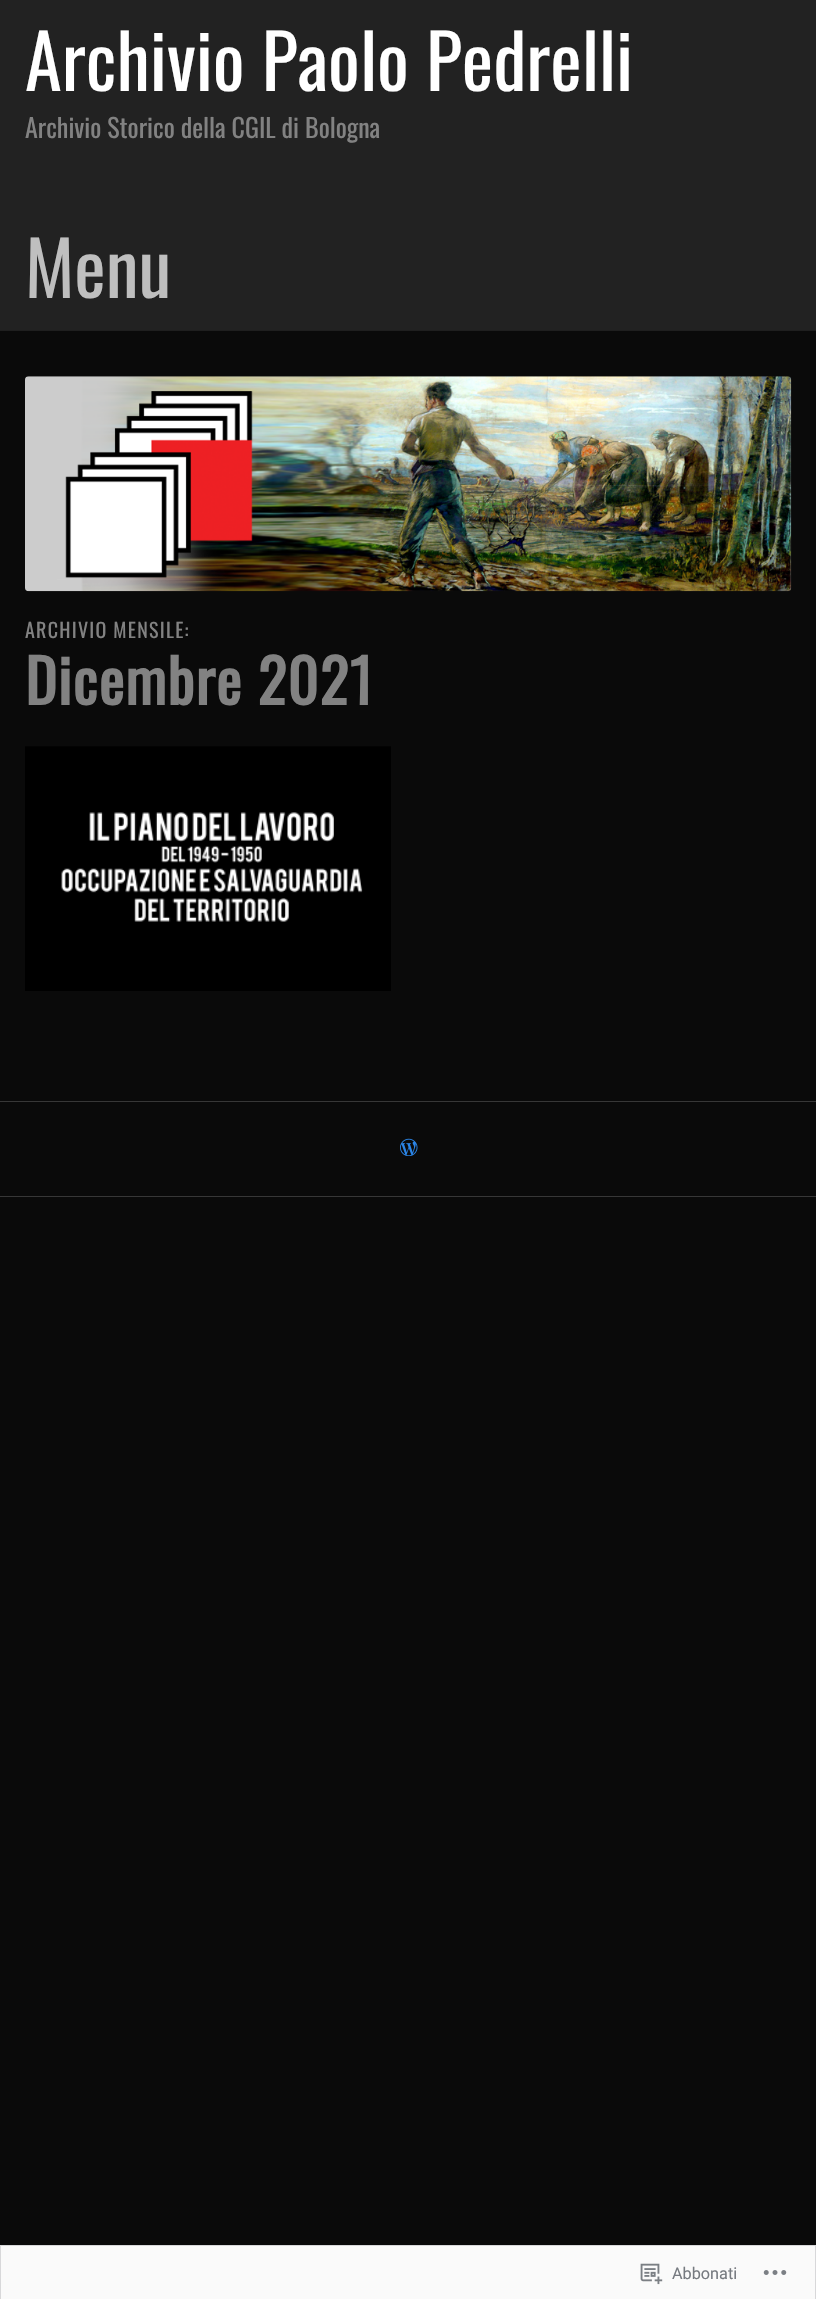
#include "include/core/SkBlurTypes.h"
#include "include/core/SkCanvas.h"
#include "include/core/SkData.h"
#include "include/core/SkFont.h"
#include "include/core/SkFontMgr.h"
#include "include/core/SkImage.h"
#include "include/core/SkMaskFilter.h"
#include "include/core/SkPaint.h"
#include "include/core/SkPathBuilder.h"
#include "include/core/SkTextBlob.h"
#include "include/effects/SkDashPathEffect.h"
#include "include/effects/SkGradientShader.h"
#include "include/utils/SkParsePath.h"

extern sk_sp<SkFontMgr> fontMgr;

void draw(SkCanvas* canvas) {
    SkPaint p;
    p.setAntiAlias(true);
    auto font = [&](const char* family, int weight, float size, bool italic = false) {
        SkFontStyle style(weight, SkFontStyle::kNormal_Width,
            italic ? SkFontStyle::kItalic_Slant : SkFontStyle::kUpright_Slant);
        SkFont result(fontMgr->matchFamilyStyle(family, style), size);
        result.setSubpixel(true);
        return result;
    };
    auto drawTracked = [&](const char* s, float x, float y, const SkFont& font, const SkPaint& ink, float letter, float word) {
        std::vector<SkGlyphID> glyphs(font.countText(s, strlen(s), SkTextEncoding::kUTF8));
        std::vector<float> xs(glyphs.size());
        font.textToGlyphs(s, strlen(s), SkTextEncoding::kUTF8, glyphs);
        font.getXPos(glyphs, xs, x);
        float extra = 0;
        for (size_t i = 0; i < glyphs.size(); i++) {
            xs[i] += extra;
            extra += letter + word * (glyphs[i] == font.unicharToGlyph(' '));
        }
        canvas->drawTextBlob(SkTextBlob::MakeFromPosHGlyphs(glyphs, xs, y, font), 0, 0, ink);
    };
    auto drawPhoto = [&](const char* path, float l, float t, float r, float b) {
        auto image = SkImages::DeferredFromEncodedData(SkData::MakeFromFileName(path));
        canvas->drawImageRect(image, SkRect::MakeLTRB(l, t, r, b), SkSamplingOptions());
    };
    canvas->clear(0xFF0A0A0A);
    p.setColor(0xFF222222);
    canvas->drawRect(SkRect::MakeLTRB(0, 0, 816, 330), p);
    p.setColor(0xFF1F1F1F);
    canvas->drawRect(SkRect::MakeLTRB(0, 330, 816, 331), p);
    auto font1 = font("Oswald", 400, 74.75f);
    p.setColor(0xFFFFFFFF);
    canvas->drawString("Archivio Paolo Pedrelli", 25, 91, font1, p);
    auto font2 = font("Oswald", 400, 26);
    p.setColor(0xFF828282);
    canvas->drawString("Archivio Storico della CGIL di Bologna", 25, 138, font2, p);
    p.setColor(0xFFBFBFBF);
    canvas->drawString("Menu", 25, 298, font1, p);
    drawPhoto("media/1.png", 25, 376, 792, 592);
    auto font3 = font("Oswald", 400, 20);
    p.setColor(0xFF828282);
    drawTracked("ARCHIVIO MENSILE:", 25, 638, font3, p, 1.25f, 0);
    auto font4 = font("Oswald", 700, 60);
    drawTracked("Dicembre 2021", 25, 705, font4, p, 1.25f, 0);
    drawPhoto("media/2.png", 25, 746, 391, 991);
    p.setColor(0xFF373737);
    canvas->drawRect(SkRect::MakeLTRB(0, 1101, 816, 1102), p);
    canvas->drawRect(SkRect::MakeLTRB(0, 1196, 816, 1197), p);
    drawPhoto("media/3.png", 400, 1138, 418, 1156);
    p.setColor(0xFFFAFAFA);
    canvas->drawRect(SkRect::MakeLTRB(0.5f, 2245.5f, 815.5f, 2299.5f), p);
    p.setStyle(SkPaint::kStroke_Style);
    p.setStrokeWidth(1);
    p.setColor(0xFFD8D8DA);
    canvas->drawRect(SkRect::MakeLTRB(0.5f, 2245.5f, 815.5f, 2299.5f), p);
    drawPhoto("media/4.png", 640, 2263, 663, 2285);
    auto font5 = font("Roboto", 400, 16.25f);
    p.setStyle(SkPaint::kFill_Style);
    p.setColor(0xFF767A80);
    canvas->drawString("Abbonati", 672, 2279, font5, p);
    drawPhoto("media/5.png", 763, 2270, 787, 2275);
}
